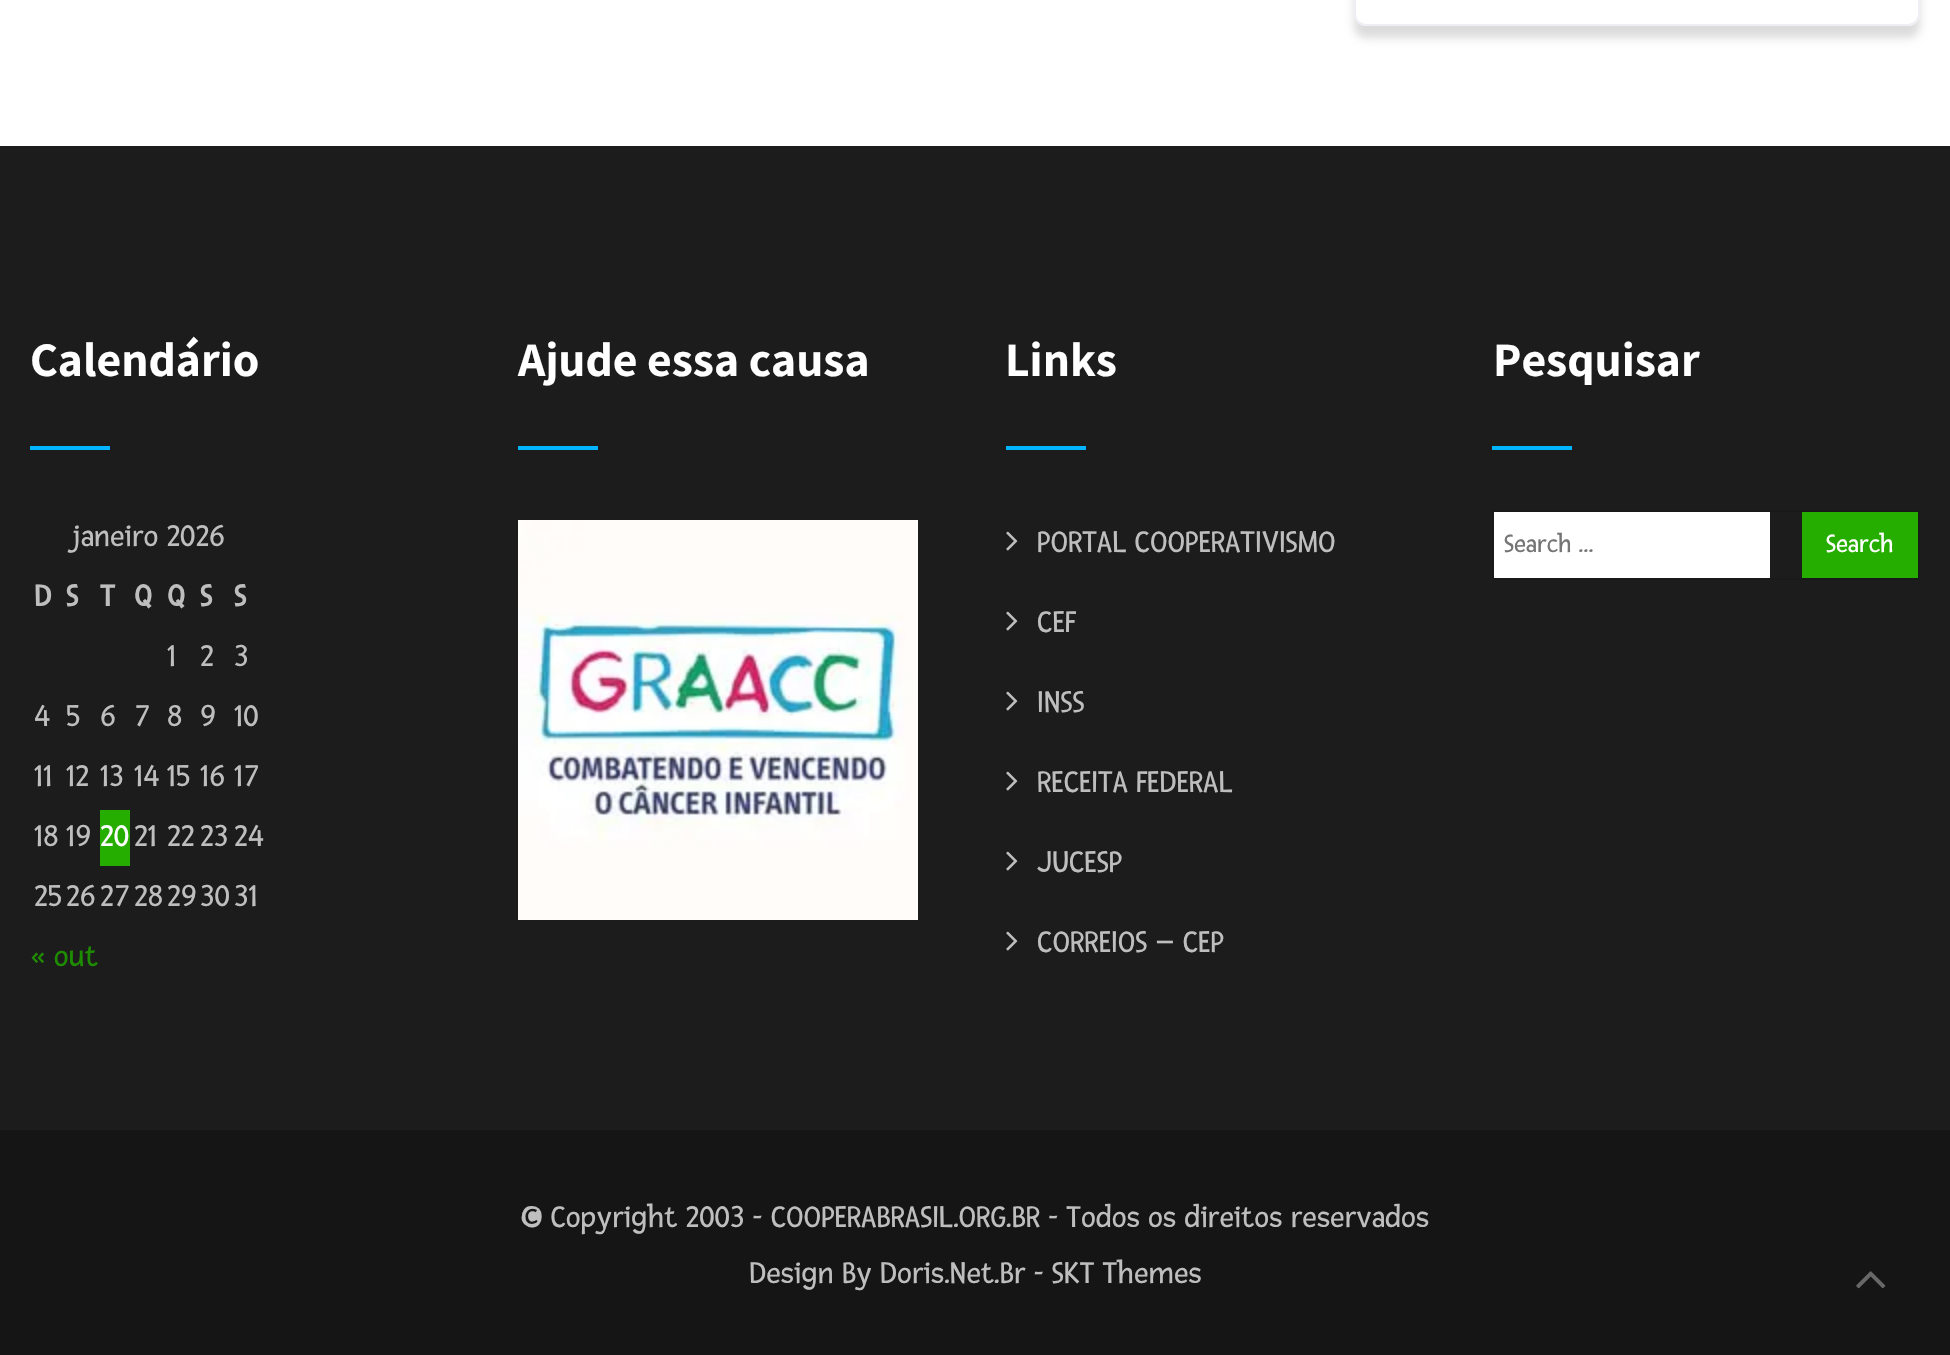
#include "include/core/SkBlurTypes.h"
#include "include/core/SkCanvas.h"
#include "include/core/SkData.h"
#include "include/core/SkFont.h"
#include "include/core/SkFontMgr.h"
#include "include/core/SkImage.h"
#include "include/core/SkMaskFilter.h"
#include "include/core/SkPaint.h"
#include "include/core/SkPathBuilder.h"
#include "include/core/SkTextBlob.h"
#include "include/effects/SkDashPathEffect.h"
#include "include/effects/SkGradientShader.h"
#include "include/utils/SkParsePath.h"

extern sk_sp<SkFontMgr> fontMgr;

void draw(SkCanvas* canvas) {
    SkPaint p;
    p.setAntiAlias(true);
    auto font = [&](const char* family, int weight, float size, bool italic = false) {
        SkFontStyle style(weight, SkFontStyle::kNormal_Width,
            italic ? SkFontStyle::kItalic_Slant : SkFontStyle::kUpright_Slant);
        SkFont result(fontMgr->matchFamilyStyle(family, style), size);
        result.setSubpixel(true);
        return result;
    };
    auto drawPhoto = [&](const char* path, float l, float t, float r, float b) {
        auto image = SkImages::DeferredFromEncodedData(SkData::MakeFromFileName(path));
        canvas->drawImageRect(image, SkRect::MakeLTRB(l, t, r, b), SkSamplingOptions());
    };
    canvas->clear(0xFFFFFFFF);
    canvas->save();
    canvas->clipPath(SkPathBuilder(SkPathFillType::kEvenOdd).moveTo(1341, 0).lineTo(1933, 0).lineTo(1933, 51).lineTo(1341, 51).close().moveTo(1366, -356).lineTo(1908, -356).cubicTo(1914.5f, -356, 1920, -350.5f, 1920, -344).lineTo(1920, 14).cubicTo(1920, 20.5f, 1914.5f, 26, 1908, 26).lineTo(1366, 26).cubicTo(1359.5f, 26, 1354, 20.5f, 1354, 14).lineTo(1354, -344).cubicTo(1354, -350.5f, 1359.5f, -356, 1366, -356).close().detach(), true);
    p.setColor(0xFFDCDCDC);
    p.setMaskFilter(SkMaskFilter::MakeBlur(kNormal_SkBlurStyle, 4));
    canvas->drawRoundRect(SkRect::MakeLTRB(1354, -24, 1920, 38), 12, 12, p);
    p.setMaskFilter(nullptr);
    canvas->restore();
    p.setStyle(SkPaint::kStroke_Style);
    p.setStrokeWidth(2);
    p.setColor(0xFFEEEFF5);
    canvas->drawRoundRect(SkRect::MakeLTRB(1355, -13, 1919, 25), 11, 11, p);
    p.setStyle(SkPaint::kFill_Style);
    p.setColor(0xFF1C1C1C);
    canvas->drawRect(SkRect::MakeLTRB(0, 146, 1950, 1130), p);
    auto font1 = font("Assistant", 700, 48);
    p.setColor(0xFFFFFFFF);
    canvas->drawString("Calendário", 30, 376, font1, p);
    p.setColor(0xFF01B4FF);
    canvas->drawRect(SkRect::MakeLTRB(30, 446, 110, 450), p);
    auto font2 = font("Fresca", 400, 32);
    p.setColor(0xFFBEBEBE);
    canvas->drawString("janeiro 2026", 72, 546, font2, p);
    auto font3 = font("Fresca", 700, 32);
    {
        const struct { const char* s; float x, y; } items[] = {
            {"D", 34, 606},
            {"S", 66, 606},
            {"T", 100, 606},
            {"Q", 134, 606},
            {"Q", 167, 606},
            {"S", 200, 606},
            {"S", 234, 606},
        };
        for (auto [s, x, y] : items) {
            canvas->drawString(s, x, y, font3, p);
        }
    }
    {
        const struct { const char* s; float x, y; } items[] = {
            {"1", 167, 666},
            {"2", 200, 666},
            {"3", 234, 666},
            {"4", 34, 726},
            {"5", 66, 726},
            {"6", 100, 726},
            {"7", 134, 726},
            {"8", 167, 726},
            {"9", 200, 726},
            {"10", 234, 726},
            {"11", 34, 786},
            {"12", 66, 786},
            {"13", 100, 786},
            {"14 15", 134, 786},
            {"16", 200, 786},
            {"17", 234, 786},
            {"18", 34, 846},
            {"19", 66, 846},
        };
        for (auto [s, x, y] : items) {
            canvas->drawString(s, x, y, font2, p);
        }
    }
    p.setColor(0xFF25AD00);
    canvas->drawRect(SkRect::MakeLTRB(100, 810, 130, 866), p);
    p.setColor(0xFFFFFFFF);
    canvas->drawString("20", 100, 846, font2, p);
    p.setColor(0xFFBEBEBE);
    {
        const struct { const char* s; float x, y; } items[] = {
            {"21", 134, 846},
            {"22", 167, 846},
            {"23", 200, 846},
            {"24", 234, 846},
            {"25", 34, 906},
            {"26", 66, 906},
            {"27", 100, 906},
            {"28", 134, 906},
            {"29", 167, 906},
            {"30", 200, 906},
            {"31", 234, 906},
        };
        for (auto [s, x, y] : items) {
            canvas->drawString(s, x, y, font2, p);
        }
    }
    p.setColor(0xFF1E8C00);
    canvas->drawString("« out", 30, 966, font2, p);
    p.setColor(0xFFFFFFFF);
    canvas->drawString("Ajude essa causa", 518, 376, font1, p);
    p.setColor(0xFF01B4FF);
    canvas->drawRect(SkRect::MakeLTRB(518, 446, 598, 450), p);
    drawPhoto("media/1.png", 518, 520, 918, 920);
    p.setColor(0xFFFFFFFF);
    canvas->drawString("Links", 1005, 376, font1, p);
    p.setColor(0xFF01B4FF);
    canvas->drawRect(SkRect::MakeLTRB(1006, 446, 1086, 450), p);
    drawPhoto("media/2.png", 1006, 531, 1018, 551);
    p.setColor(0xFFBEBEBE);
    canvas->drawString("PORTAL COOPERATIVISMO", 1037, 552, font2, p);
    drawPhoto("media/2.png", 1006, 611, 1018, 631);
    canvas->drawString("CEF", 1037, 632, font2, p);
    drawPhoto("media/2.png", 1006, 691, 1018, 711);
    canvas->drawString("INSS", 1037, 712, font2, p);
    drawPhoto("media/2.png", 1006, 771, 1018, 791);
    canvas->drawString("RECEITA FEDERAL", 1037, 792, font2, p);
    drawPhoto("media/2.png", 1006, 851, 1018, 871);
    canvas->drawString("JUCESP", 1037, 872, font2, p);
    drawPhoto("media/2.png", 1006, 931, 1018, 951);
    canvas->drawString("CORREIOS – CEP", 1037, 952, font2, p);
    p.setColor(0xFFFFFFFF);
    canvas->drawString("Pesquisar", 1493, 376, font1, p);
    p.setColor(0xFF01B4FF);
    canvas->drawRect(SkRect::MakeLTRB(1492, 446, 1572, 450), p);
    p.setStyle(SkPaint::kStroke_Style);
    p.setColor(0xFF191919);
    canvas->drawRect(SkRect::MakeLTRB(1493, 511, 1919, 579), p);
    p.setStyle(SkPaint::kFill_Style);
    p.setColor(0xFFFFFFFF);
    canvas->drawRect(SkRect::MakeLTRB(1494, 512, 1770, 578), p);
    auto font4 = font("Fresca", 400, 26.5f);
    p.setColor(0xFF757575);
    canvas->drawString("Search …", 1504, 552, font4, p);
    p.setColor(0xFF25AD00);
    canvas->drawRect(SkRect::MakeLTRB(1802, 512, 1918, 578), p);
    p.setColor(0xFFFFFFFF);
    canvas->drawString("Search", 1826, 552, font4, p);
    p.setColor(0xFF151515);
    canvas->drawRect(SkRect::MakeLTRB(0, 1130, 1950, 1355), p);
    p.setColor(0xFFBEBEBE);
    canvas->drawString("© Copyright 2003 - COOPERABRASIL.ORG.BR - Todos os direitos reservados", 521, 1227, font2, p);
    canvas->drawString("Design By Doris.Net.Br - SKT Themes", 749, 1283, font2, p);
    drawPhoto("media/3.png", 1856, 1271, 1886, 1289);
}
